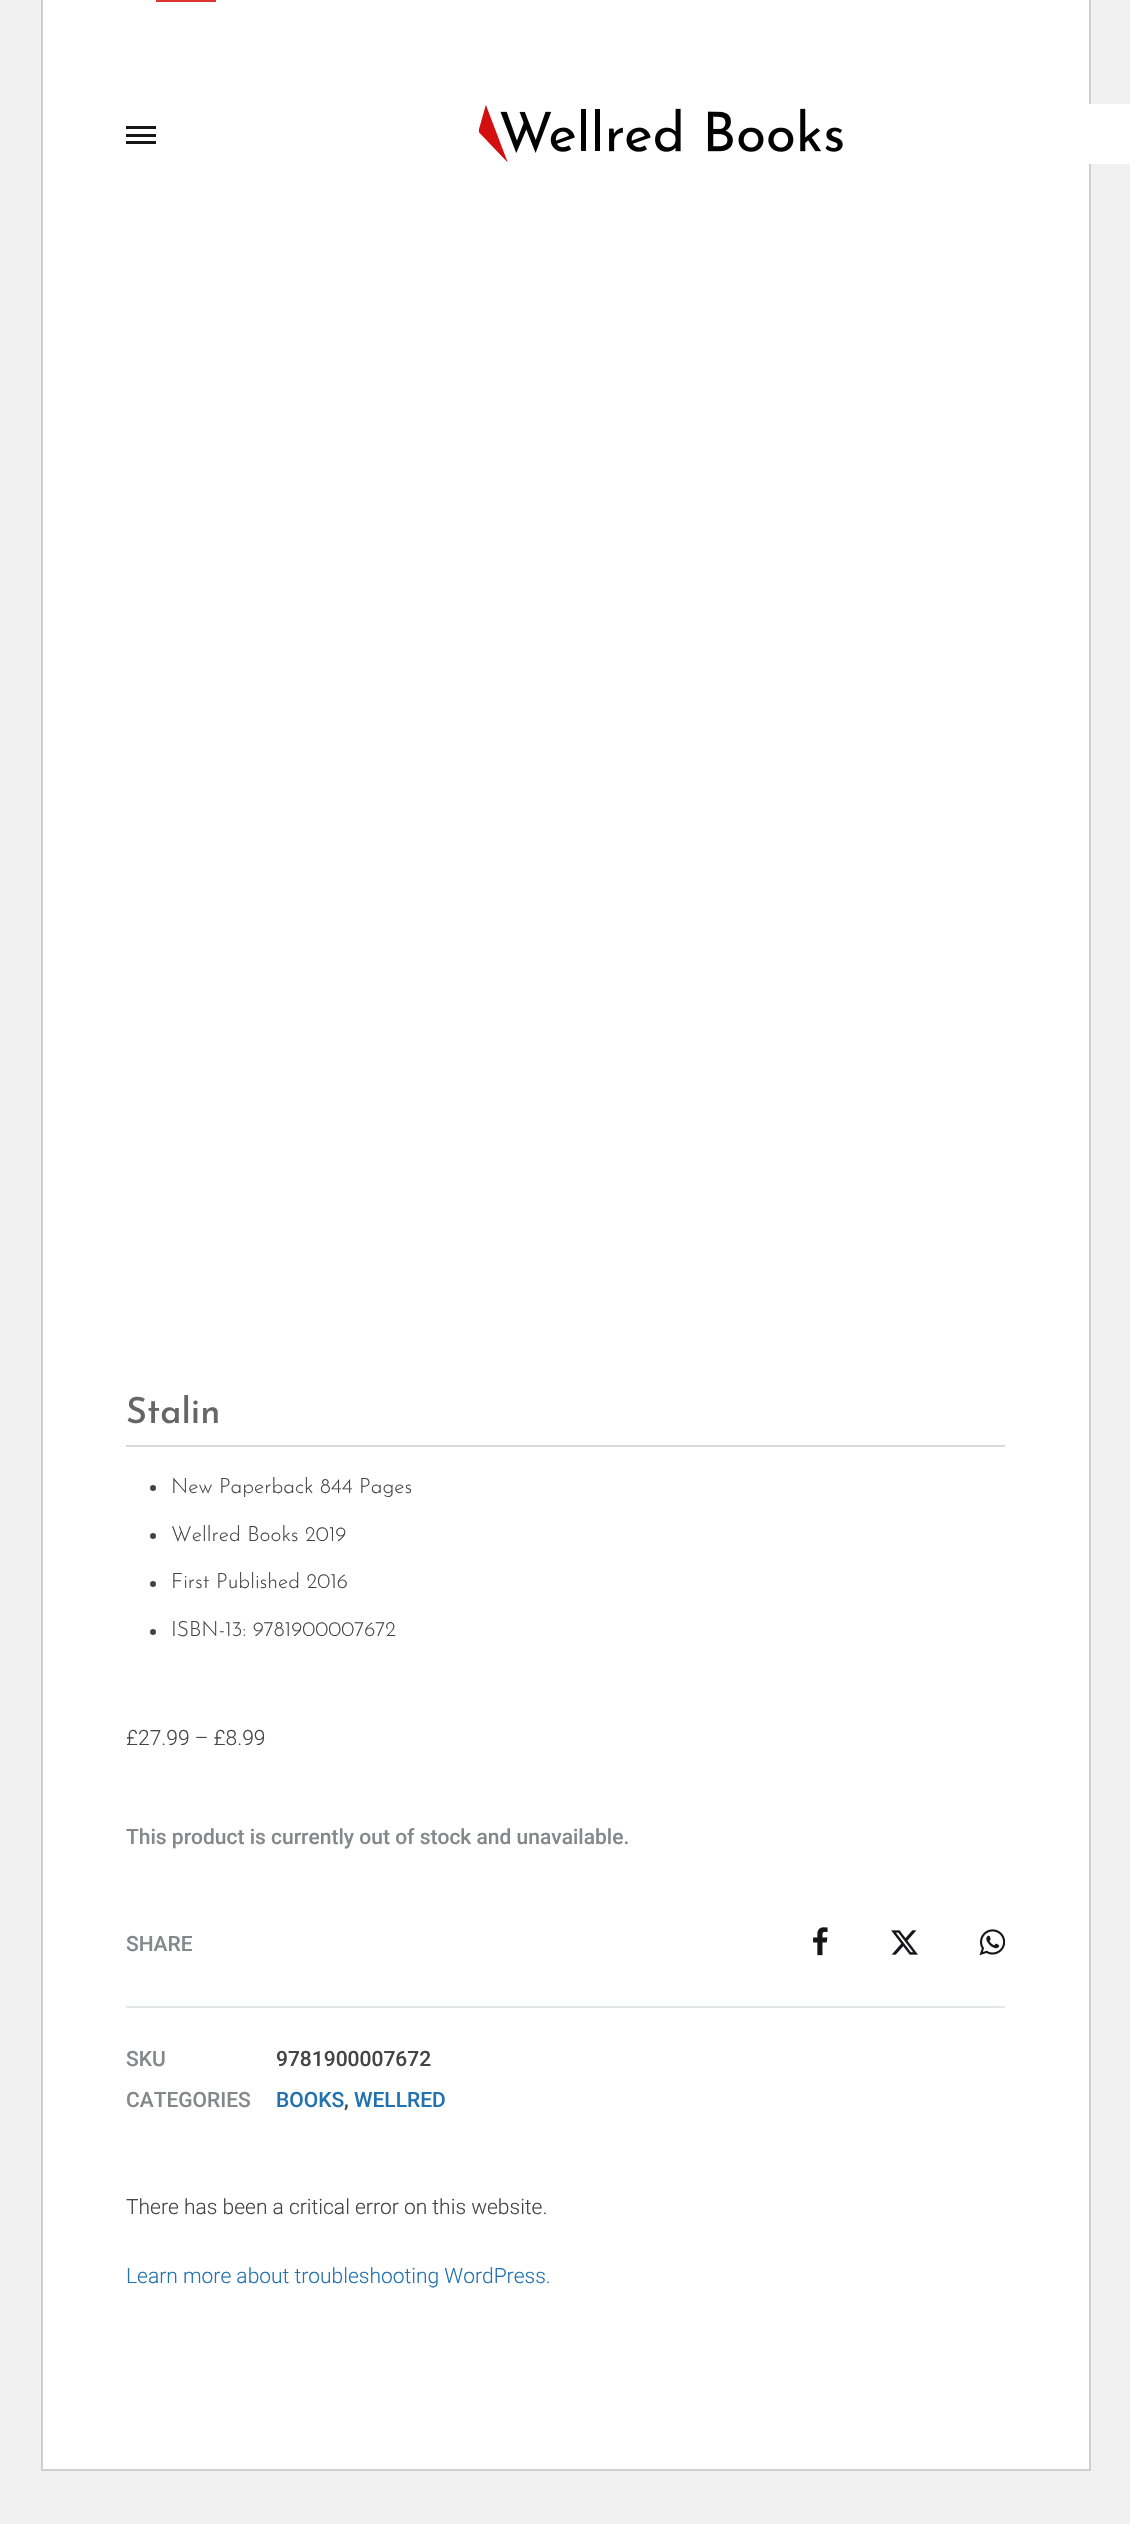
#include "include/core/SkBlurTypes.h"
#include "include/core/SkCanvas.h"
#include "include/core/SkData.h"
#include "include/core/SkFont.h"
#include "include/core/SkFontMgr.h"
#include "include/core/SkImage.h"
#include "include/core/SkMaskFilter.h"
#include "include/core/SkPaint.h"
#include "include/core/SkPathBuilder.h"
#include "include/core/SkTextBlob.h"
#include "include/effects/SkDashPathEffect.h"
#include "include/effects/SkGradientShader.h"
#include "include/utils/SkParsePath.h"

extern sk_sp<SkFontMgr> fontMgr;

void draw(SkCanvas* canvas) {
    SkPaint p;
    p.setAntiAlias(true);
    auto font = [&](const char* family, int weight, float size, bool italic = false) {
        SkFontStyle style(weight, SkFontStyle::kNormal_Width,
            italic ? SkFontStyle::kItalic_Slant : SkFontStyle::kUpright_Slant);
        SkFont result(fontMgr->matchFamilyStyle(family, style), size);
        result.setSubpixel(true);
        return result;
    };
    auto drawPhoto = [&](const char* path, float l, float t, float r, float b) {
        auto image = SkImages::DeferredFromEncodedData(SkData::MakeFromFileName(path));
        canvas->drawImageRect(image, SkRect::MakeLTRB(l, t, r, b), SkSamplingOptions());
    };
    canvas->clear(0xFFF1F1F1);
    p.setColor(0xFFFFFFFF);
    canvas->drawRect(SkRect::MakeLTRB(42, -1, 1090, 2470), p);
    p.setStyle(SkPaint::kStroke_Style);
    p.setStrokeWidth(2);
    p.setColor(0xFFCCD0D4);
    canvas->drawRect(SkRect::MakeLTRB(42, -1, 1090, 2470), p);
    p.setStyle(SkPaint::kFill_Style);
    {
        const struct { float l, t, r, b; SkColor color; } items[] = {
            {1089, 104, 1130, 164, 0xFFFFFFFF},
            {126, 134, 156, 137, 0xFF161619},
            {126, 126, 156, 129, 0xFF161619},
            {126, 141, 156, 144, 0xFF161619},
        };
        for (auto [l, t, r, b, color] : items) {
            p.setColor(color);
            canvas->drawRect(SkRect::MakeLTRB(l, t, r, b), p);
        }
    }
    drawPhoto("media/1.png", 479, 105, 843, 162);
    p.setColor(0xFFDD3333);
    canvas->drawRect(SkRect::MakeLTRB(156, 0, 216, 2), p);
    p.setColor(0xFFDADADA);
    canvas->drawRect(SkRect::MakeLTRB(126, 1445, 1005, 1447), p);
    auto font1 = font("Josefin Sans", 500, 36);
    p.setColor(0xFF666666);
    canvas->drawString("Stalin", 126, 1423, font1, p);
    p.setColor(0xFF444444);
    canvas->drawCircle(153, 1488, 3, p);
    auto font2 = font("Josefin Sans", 300, 21);
    canvas->drawString("New Paperback 844 Pages", 171, 1493, font2, p);
    canvas->drawCircle(153, 1536, 3, p);
    canvas->drawString("Wellred Books 2019", 171, 1541, font2, p);
    canvas->drawCircle(153, 1584, 3, p);
    canvas->drawString("First Published 2016", 171, 1588, font2, p);
    canvas->drawCircle(153, 1632, 3, p);
    canvas->drawString("ISBN-13: 9781900007672", 171, 1636, font2, p);
    auto font3 = font("Roboto", 300, 21);
    canvas->drawString("£27.99 – £8.99", 126, 1745, font3, p);
    auto font4 = font("Roboto", 500, 21);
    p.setColor(0xFF838889);
    canvas->drawString("This product is currently out of stock and unavailable.", 126, 1844, font4, p);
    canvas->drawString("SHARE", 126, 1951, font4, p);
    drawPhoto("media/2.png", 813, 1927, 828, 1956);
    drawPhoto("media/3.png", 891, 1930, 918, 1955);
    drawPhoto("media/4.png", 979, 1929, 1005, 1956);
    p.setColor(0xFFE3E7E8);
    canvas->drawRect(SkRect::MakeLTRB(126, 2006, 1005, 2008), p);
    p.setColor(0xFF838889);
    canvas->drawString("SKU", 126, 2066, font4, p);
    p.setColor(0xFF444444);
    canvas->drawString("9781900007672", 276, 2066, font4, p);
    p.setColor(0xFF838889);
    canvas->drawString("CATEGORIES", 126, 2107, font4, p);
    p.setColor(0xFF2271B1);
    canvas->drawString("BOOKS", 276, 2107, font4, p);
    p.setColor(0xFF444444);
    canvas->drawString(",", 344, 2107, font4, p);
    p.setColor(0xFF2271B1);
    canvas->drawString("WELLRED", 354, 2107, font4, p);
    p.setColor(0xFF444444);
    canvas->drawString("There has been a critical error on this website.", 126, 2214, font3, p);
    p.setColor(0xFF2271B1);
    canvas->drawString("Learn more about troubleshooting WordPress.", 126, 2283, font3, p);
}
